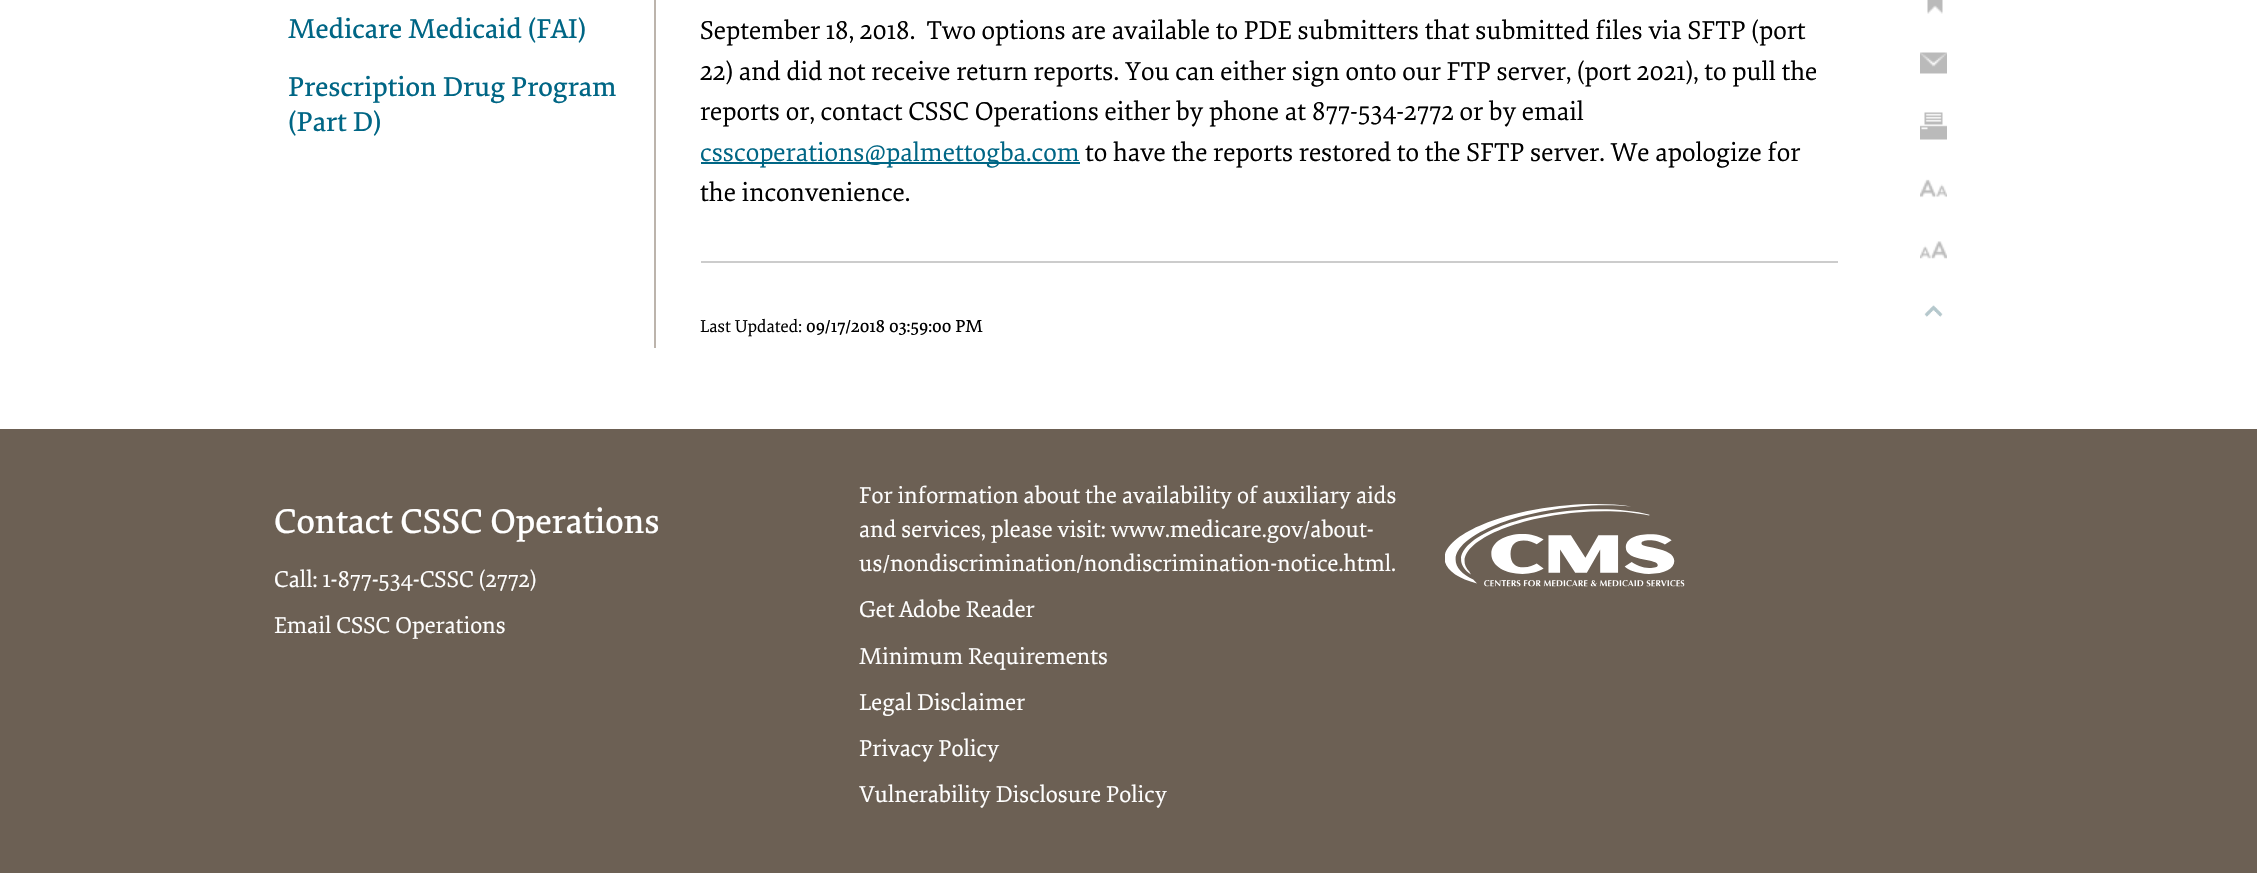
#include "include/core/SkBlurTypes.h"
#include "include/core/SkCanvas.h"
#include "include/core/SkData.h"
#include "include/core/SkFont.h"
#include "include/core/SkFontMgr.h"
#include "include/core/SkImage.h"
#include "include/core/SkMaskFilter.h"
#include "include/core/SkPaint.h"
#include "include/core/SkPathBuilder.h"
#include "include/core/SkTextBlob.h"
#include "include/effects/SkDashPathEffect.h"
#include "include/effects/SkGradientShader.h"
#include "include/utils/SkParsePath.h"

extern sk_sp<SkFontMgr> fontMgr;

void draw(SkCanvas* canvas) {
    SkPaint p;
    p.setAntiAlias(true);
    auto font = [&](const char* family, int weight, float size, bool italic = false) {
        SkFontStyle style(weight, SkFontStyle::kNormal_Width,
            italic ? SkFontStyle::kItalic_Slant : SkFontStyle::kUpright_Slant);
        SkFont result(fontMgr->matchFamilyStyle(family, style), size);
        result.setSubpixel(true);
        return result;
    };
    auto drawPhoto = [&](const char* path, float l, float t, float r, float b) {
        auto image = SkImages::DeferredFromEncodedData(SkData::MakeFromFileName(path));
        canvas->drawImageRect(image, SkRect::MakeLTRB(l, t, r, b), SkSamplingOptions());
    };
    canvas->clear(0xFFFFFFFF);
    auto font1 = font("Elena", 500, 28.5f);
    p.setColor(0xFF006685);
    {
        const struct { const char* s; float x, y; } items[] = {
            {"Medicare Medicaid (FAI)", 288, 38},
            {"Prescription Drug Program", 288, 96},
            {"(Part D)", 288, 131},
        };
        for (auto [s, x, y] : items) {
            canvas->drawString(s, x, y, font1, p);
        }
    }
    p.setColor(0xFFBCB4AC);
    canvas->drawRect(SkRect::MakeLTRB(654, 0, 656, 348), p);
    auto font2 = font("Elena", 400, 27);
    p.setColor(0xFF000000);
    {
        const struct { const char* s; float x, y; } items[] = {
            {"September 18, 2018.  Two options are available to PDE submitters that submitted files via SFTP (port", 700, 39},
            {"22) and did not receive return reports. You can either sign onto our FTP server, (port 2021), to pull the", 700, 80},
            {"reports or, contact CSSC Operations either by phone at 877-534-2772 or by email", 700, 120},
        };
        for (auto [s, x, y] : items) {
            canvas->drawString(s, x, y, font2, p);
        }
    }
    p.setColor(0xFF006685);
    canvas->drawRect(SkRect::MakeLTRB(701, 162, 1080, 164), p);
    canvas->drawString("csscoperations@palmettogba.com", 700, 161, font2, p);
    p.setColor(0xFF000000);
    canvas->drawString("to have the reports restored to the SFTP server. We apologize for", 1085, 161, font2, p);
    canvas->drawString("the inconvenience.", 700, 201, font2, p);
    p.setColor(0xFFCCCCCC);
    canvas->drawRect(SkRect::MakeLTRB(701, 261, 1838, 263), p);
    auto font3 = font("Elena", 400, 18);
    p.setColor(0xFF000000);
    canvas->drawString("Last Updated:", 700, 332, font3, p);
    auto font4 = font("Elena", 500, 18);
    canvas->drawString("09/17/2018 03:59:00 PM", 806, 332, font4, p);
    drawPhoto("media/1.png", 1927, 0, 1943, 14);
    drawPhoto("media/2.png", 1920, 52, 1947, 74);
    drawPhoto("media/3.png", 1920, 112, 1947, 140);
    drawPhoto("media/4.png", 1920, 179, 1947, 198);
    drawPhoto("media/5.png", 1920, 241, 1947, 259);
    drawPhoto("media/6.png", 1924, 305, 1943, 317);
    p.setColor(0xFF6C6054);
    canvas->drawRect(SkRect::MakeLTRB(0, 429, 2257, 873), p);
    auto font5 = font("Elena", 500, 36);
    p.setColor(0xFFFFFFFF);
    canvas->drawString("Contact CSSC Operations", 274, 533, font5, p);
    auto font6 = font("Elena", 400, 24);
    {
        const struct { const char* s; float x, y; } items[] = {
            {"Call: 1-877-534-CSSC (2772)", 274, 587},
            {"Email CSSC Operations", 274, 633},
            {"For information about the availability of auxiliary aids", 859, 503},
            {"and services, please visit: www.medicare.gov/about-", 859, 537},
            {"us/nondiscrimination/nondiscrimination-notice.html.", 859, 571},
            {"Get Adobe Reader", 859, 617},
            {"Minimum Requirements", 859, 664},
            {"Legal Disclaimer", 859, 710},
            {"Privacy Policy", 859, 756},
            {"Vulnerability Disclosure Policy", 859, 802},
        };
        for (auto [s, x, y] : items) {
            canvas->drawString(s, x, y, font6, p);
        }
    }
    drawPhoto("media/7.png", 1445, 504, 1685, 587);
}
